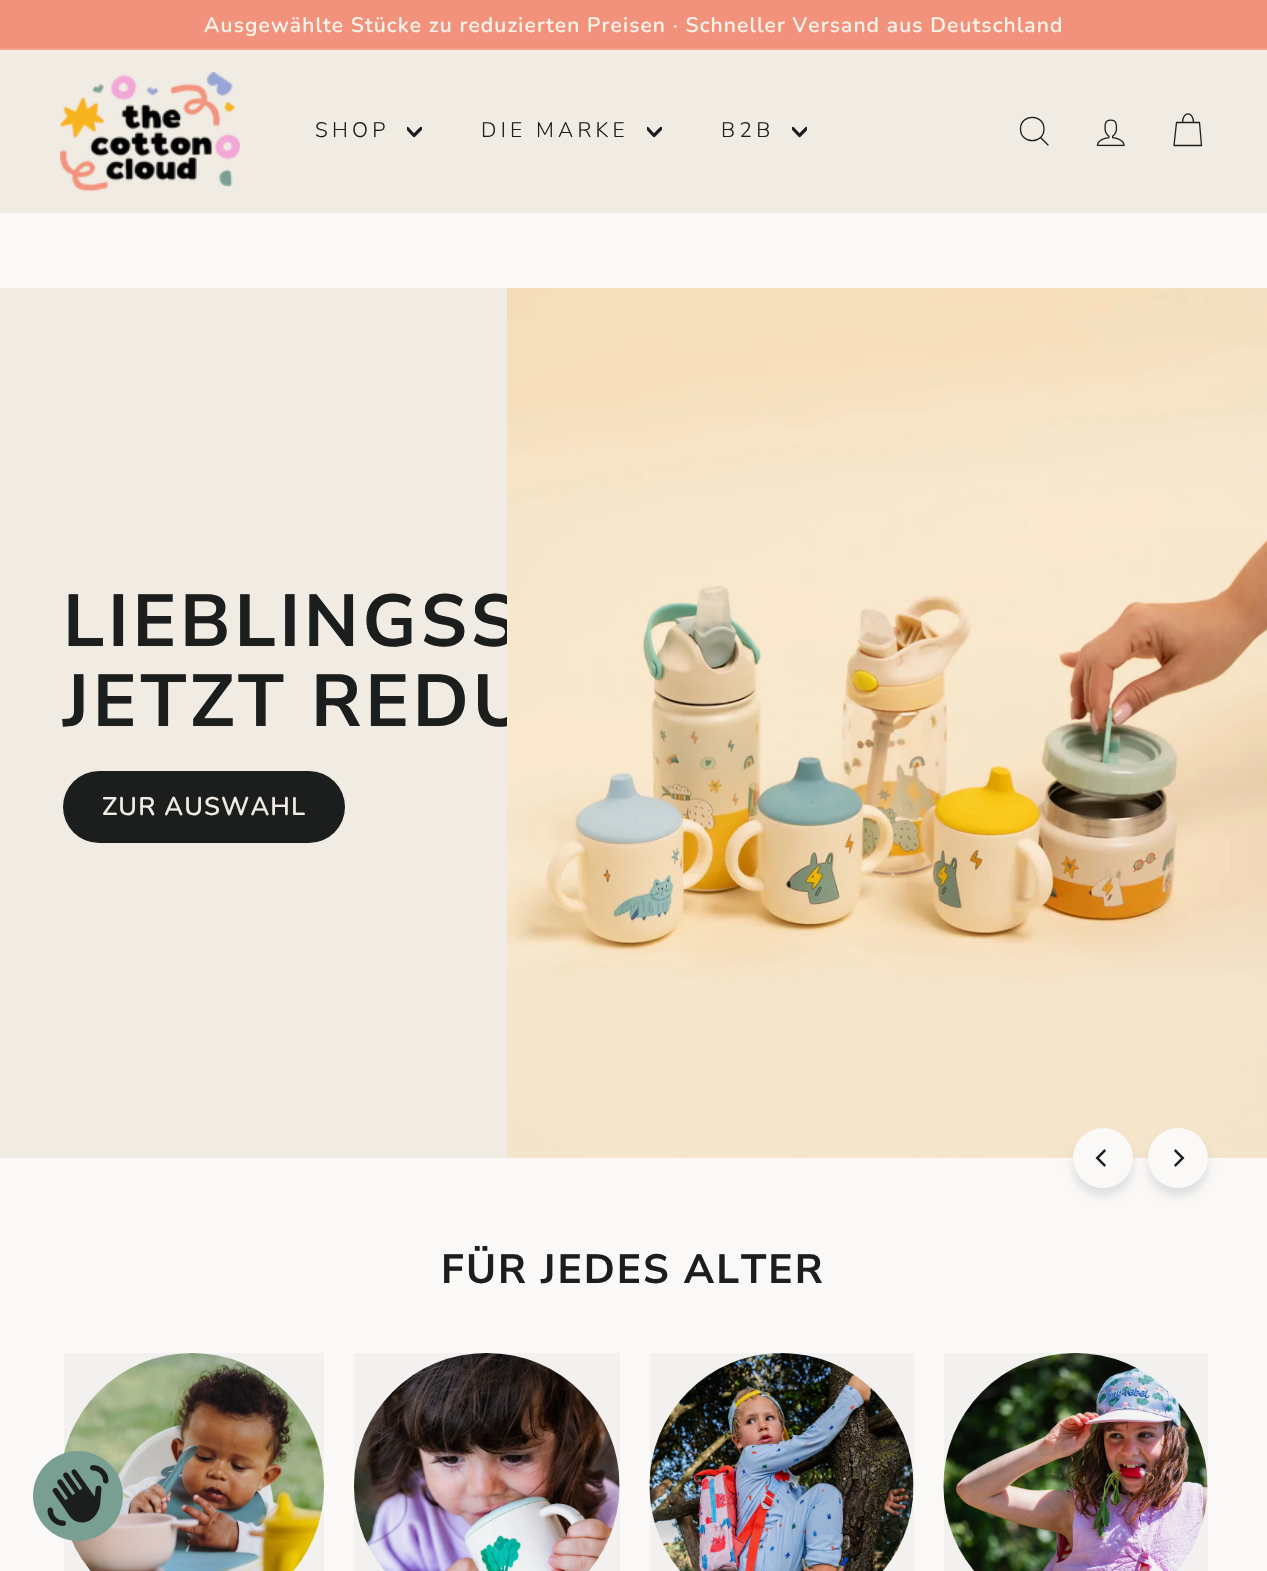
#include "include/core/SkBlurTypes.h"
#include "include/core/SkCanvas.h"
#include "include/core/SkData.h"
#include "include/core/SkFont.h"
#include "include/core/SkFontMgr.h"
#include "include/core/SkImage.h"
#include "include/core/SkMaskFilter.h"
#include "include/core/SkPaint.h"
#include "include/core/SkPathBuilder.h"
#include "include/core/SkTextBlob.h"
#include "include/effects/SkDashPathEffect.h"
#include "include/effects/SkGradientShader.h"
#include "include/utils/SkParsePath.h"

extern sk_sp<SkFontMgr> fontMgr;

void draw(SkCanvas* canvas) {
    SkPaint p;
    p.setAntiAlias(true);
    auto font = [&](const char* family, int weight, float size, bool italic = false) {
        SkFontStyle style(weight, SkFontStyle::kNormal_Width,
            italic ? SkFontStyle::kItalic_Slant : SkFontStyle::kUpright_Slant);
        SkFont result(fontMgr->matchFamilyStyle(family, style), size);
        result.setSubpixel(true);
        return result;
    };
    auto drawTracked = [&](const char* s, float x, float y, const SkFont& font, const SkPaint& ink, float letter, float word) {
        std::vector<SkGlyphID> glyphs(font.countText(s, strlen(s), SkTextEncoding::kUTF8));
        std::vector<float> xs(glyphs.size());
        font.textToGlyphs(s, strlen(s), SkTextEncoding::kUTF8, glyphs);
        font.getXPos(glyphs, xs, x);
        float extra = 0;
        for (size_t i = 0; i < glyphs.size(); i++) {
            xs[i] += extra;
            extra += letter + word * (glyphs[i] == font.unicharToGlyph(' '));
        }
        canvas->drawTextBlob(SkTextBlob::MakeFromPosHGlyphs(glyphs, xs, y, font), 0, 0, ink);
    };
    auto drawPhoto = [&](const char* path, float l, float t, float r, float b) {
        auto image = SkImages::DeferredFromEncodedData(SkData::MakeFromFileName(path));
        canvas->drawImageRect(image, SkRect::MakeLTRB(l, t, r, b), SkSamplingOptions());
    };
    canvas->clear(0xFFFAF9F8);
    p.setColor(0xFFF2927C);
    canvas->drawRect(SkRect::MakeLTRB(0, 0, 1267, 48), p);
    auto font1 = font("Nunito", 600, 21);
    p.setColor(0xFFF7F3E9);
    drawTracked("Ausgewählte Stücke zu reduzierten Preisen · Schneller Versand aus Deutschland", 204, 32, font1, p, 1.12f, 0);
    p.setColor(0xFFF3A18C);
    canvas->drawRect(SkRect::MakeLTRB(0, 48, 1267, 50), p);
    p.setColor(0xFFF0ECE3);
    canvas->drawRect(SkRect::MakeLTRB(0, 50, 1267, 213), p);
    drawPhoto("media/1.png", 60, 72, 240, 191);
    auto font2 = font("Nunito", 300, 21);
    p.setColor(0xFF1C1D1D);
    drawTracked("SHOP", 315, 137, font2, p, 4.25f, 0);
    canvas->save();
    canvas->clipRect(SkRect::MakeLTRB(407, 125, 422, 140));
    p.setStyle(SkPaint::kStroke_Style);
    p.setStrokeWidth(3.2f);
    p.setStrokeCap(SkPaint::kRound_Cap);
    p.setStrokeJoin(SkPaint::kRound_Join);
    canvas->drawPath(SkPathBuilder().moveTo(407.5f, 128.5f).lineTo(414, 135.5f).lineTo(421, 128.5f).detach(), p);
    canvas->restore();
    p.setStyle(SkPaint::kFill_Style);
    drawTracked("DIE MARKE", 481, 137, font2, p, 4.25f, 0);
    canvas->save();
    canvas->clipRect(SkRect::MakeLTRB(647, 125, 662, 140));
    p.setStyle(SkPaint::kStroke_Style);
    canvas->drawPath(SkPathBuilder().moveTo(647.5f, 128.5f).lineTo(654, 135.5f).lineTo(661, 128.5f).detach(), p);
    canvas->restore();
    p.setStyle(SkPaint::kFill_Style);
    drawTracked("B2B", 721, 137, font2, p, 4.25f, 0);
    canvas->save();
    canvas->clipRect(SkRect::MakeLTRB(792, 125, 807, 140));
    p.setStyle(SkPaint::kStroke_Style);
    canvas->drawPath(SkPathBuilder().moveTo(793, 128.5f).lineTo(799.5f, 135.5f).lineTo(806.5f, 128.5f).detach(), p);
    canvas->restore();
    p.setStrokeWidth(1.3f);
    canvas->drawPath(SkPathBuilder().moveTo(1044, 129).cubicTo(1044, 144.5f, 1020.5f, 144.5f, 1020.5f, 129).cubicTo(1020.5f, 113.5f, 1044, 113.5f, 1044, 129).close().moveTo(1048, 145).lineTo(1040.5f, 137.5f).detach(), p);
    drawPhoto("media/2.png", 1096, 119, 1125, 147);
    canvas->drawPath(SkPathBuilder().moveTo(1182.5f, 122.5f).cubicTo(1182.5f, 111, 1193.5f, 111, 1193.5f, 122.5f).moveTo(1176.5f, 122.5f).lineTo(1199.5f, 122.5f).lineTo(1201.5f, 145.5f).lineTo(1174, 145.5f).close().detach(), p);
    p.setStyle(SkPaint::kFill_Style);
    p.setColor(0xFFF0ECE3);
    canvas->drawRect(SkRect::MakeLTRB(0, 288, 507, 1158), p);
    auto font3 = font("Nunito Sans", 700, 73.5f);
    p.setColor(0xFF1C1D1D);
    drawTracked("LIEBLINGSS", 63, 646, font3, p, 3.75f, 0);
    drawTracked("JETZT REDU", 63, 726, font3, p, 3.75f, 0);
    canvas->drawRoundRect(SkRect::MakeLTRB(63, 771, 345, 843), 36, 36, p);
    auto font4 = font("Nunito", 600, 25.5f);
    p.setColor(0xFFF0ECE3);
    drawTracked("ZUR AUSWAHL", 102, 815, font4, p, 1.12f, 0);
    drawPhoto("media/3.png", 507, 288, 1267, 1158);
    p.setColor(0x1A000000);
    p.setMaskFilter(SkMaskFilter::MakeBlur(kNormal_SkBlurStyle, 4));
    canvas->drawRoundRect(SkRect::MakeLTRB(1073, 1136, 1133, 1196), 30, 30, p);
    p.setMaskFilter(nullptr);
    p.setColor(0xFFFAF9F8);
    canvas->drawCircle(1103, 1158, 30, p);
    p.setColor(0xFF1C1D1D);
    canvas->drawPath(SkPathBuilder().moveTo(1095.5f, 1158).lineTo(1104.5f, 1167).lineTo(1106, 1165).lineTo(1099, 1158).lineTo(1106, 1151).lineTo(1104.5f, 1149).close().detach(), p);
    p.setColor(0x1A000000);
    p.setMaskFilter(SkMaskFilter::MakeBlur(kNormal_SkBlurStyle, 4));
    canvas->drawRoundRect(SkRect::MakeLTRB(1148, 1136, 1208, 1196), 30, 30, p);
    p.setMaskFilter(nullptr);
    p.setColor(0xFFFAF9F8);
    canvas->drawCircle(1178, 1158, 30, p);
    p.setColor(0xFF1C1D1D);
    canvas->drawPath(SkPathBuilder().moveTo(1184.5f, 1158).lineTo(1175.5f, 1149).lineTo(1174, 1151).lineTo(1181, 1158).lineTo(1174, 1165).lineTo(1175.5f, 1167).close().detach(), p);
    auto font5 = font("Nunito Sans", 700, 40.75f);
    drawTracked("FÜR JEDES ALTER", 441, 1283, font5, p, 2, 0);
    drawPhoto("media/4.png", 63, 1353, 324, 1571);
    p.setColor(0x08000000);
    canvas->drawRect(SkRect::MakeLTRB(64, 1353, 324, 1571), p);
    drawPhoto("media/5.png", 354, 1353, 620, 1571);
    canvas->drawRect(SkRect::MakeLTRB(354, 1353, 620, 1571), p);
    drawPhoto("media/6.png", 649, 1353, 914, 1571);
    canvas->drawRect(SkRect::MakeLTRB(650, 1353, 914, 1571), p);
    drawPhoto("media/7.png", 943, 1353, 1208, 1571);
    canvas->drawRect(SkRect::MakeLTRB(944, 1353, 1208, 1571), p);
    p.setColor(0xFF799F92);
    canvas->drawCircle(78, 1496, 45, p);
    drawPhoto("media/8.png", 47, 1465, 109, 1526);
}
